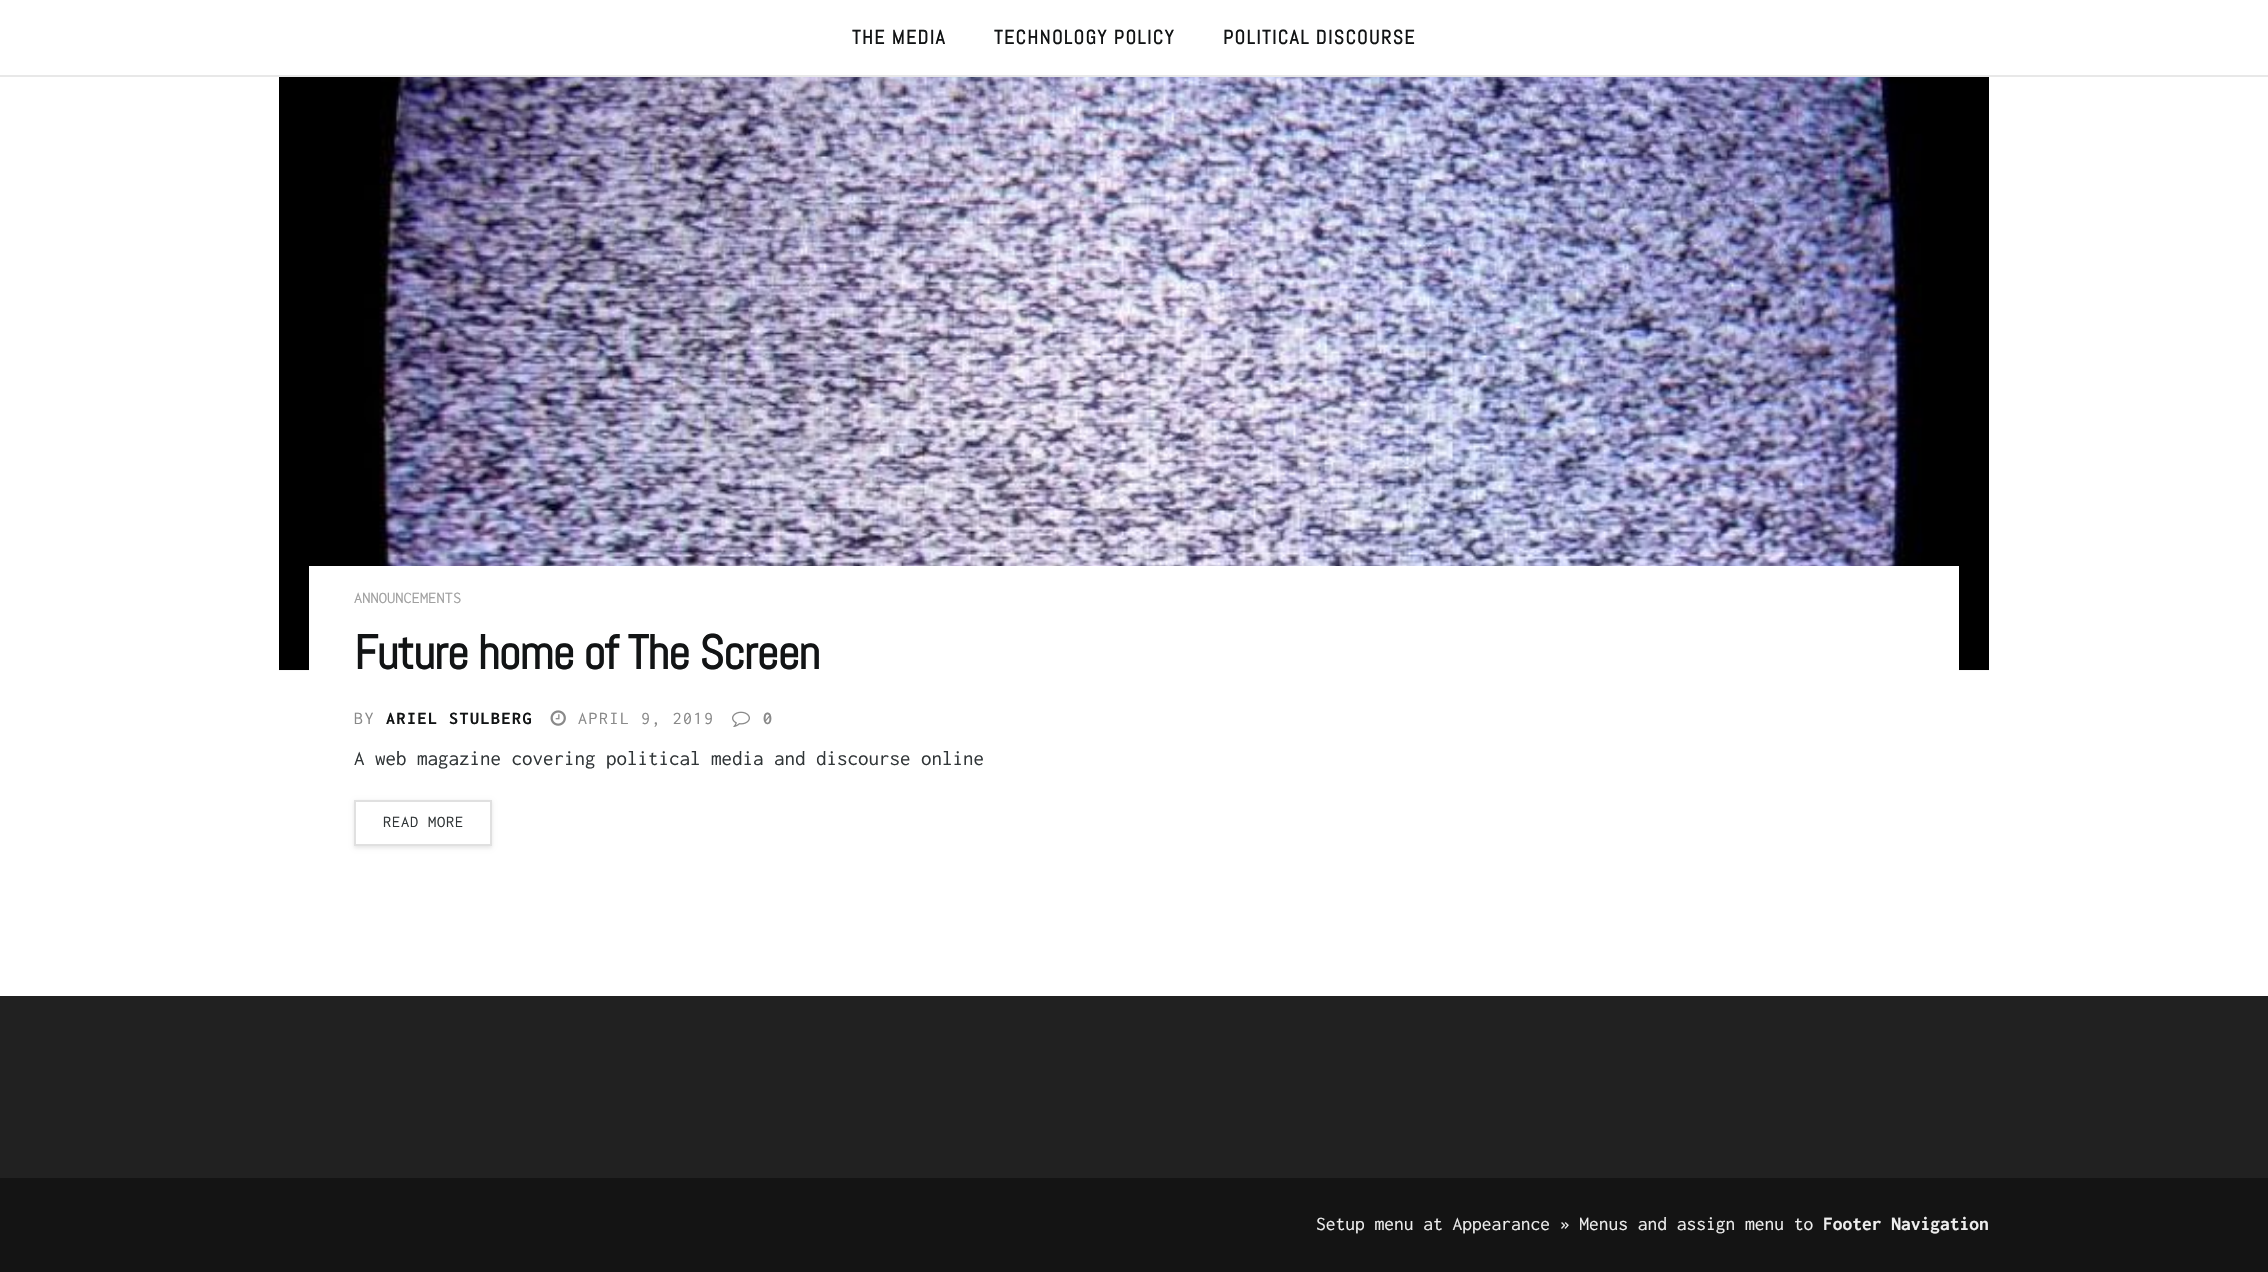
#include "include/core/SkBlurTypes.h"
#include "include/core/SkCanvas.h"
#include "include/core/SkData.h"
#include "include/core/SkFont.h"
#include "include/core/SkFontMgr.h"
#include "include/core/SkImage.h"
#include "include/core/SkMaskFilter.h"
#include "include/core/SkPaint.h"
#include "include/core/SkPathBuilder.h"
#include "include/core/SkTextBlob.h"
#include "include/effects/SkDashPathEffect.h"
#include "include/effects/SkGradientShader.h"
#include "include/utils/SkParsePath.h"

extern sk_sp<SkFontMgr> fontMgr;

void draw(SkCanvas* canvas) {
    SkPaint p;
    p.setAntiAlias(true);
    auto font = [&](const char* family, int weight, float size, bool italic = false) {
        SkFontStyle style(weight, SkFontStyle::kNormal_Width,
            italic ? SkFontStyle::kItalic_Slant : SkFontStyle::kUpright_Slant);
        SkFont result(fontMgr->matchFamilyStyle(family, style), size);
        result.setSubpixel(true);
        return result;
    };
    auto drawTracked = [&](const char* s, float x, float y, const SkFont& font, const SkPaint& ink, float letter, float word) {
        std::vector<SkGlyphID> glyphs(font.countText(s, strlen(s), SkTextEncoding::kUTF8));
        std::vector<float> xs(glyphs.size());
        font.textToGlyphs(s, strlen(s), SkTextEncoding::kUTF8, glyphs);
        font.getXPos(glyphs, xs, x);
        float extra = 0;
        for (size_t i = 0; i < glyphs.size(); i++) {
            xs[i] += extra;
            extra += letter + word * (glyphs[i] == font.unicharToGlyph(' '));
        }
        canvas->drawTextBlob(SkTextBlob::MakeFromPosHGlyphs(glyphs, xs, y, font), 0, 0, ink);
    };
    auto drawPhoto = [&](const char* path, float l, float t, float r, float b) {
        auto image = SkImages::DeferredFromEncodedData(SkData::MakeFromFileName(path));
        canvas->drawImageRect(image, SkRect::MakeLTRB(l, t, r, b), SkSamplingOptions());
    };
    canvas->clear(0xFFFFFFFF);
    p.setColor(0xFFE8E8E8);
    canvas->drawRect(SkRect::MakeLTRB(0, 75, 2268, 77), p);
    auto font1 = font("Abel", 700, 19.5f);
    p.setColor(0xFF121415);
    {
        const struct { const char* s; float x, y; } items[] = {
            {"THE MEDIA", 852, 44},
            {"TECHNOLOGY POLICY", 994, 44},
            {"POLITICAL DISCOURSE", 1223, 44},
        };
        for (auto [s, x, y] : items) {
            drawTracked(s, x, y, font1, p, 1.5f, 0);
        }
    }
    p.setColor(0xFFF7F7F7);
    canvas->drawRect(SkRect::MakeLTRB(279, 670, 1989, 671), p);
    drawPhoto("media/1.png", 279, 77, 1989, 670);
    p.setColor(0xFFFFFFFF);
    canvas->drawRect(SkRect::MakeLTRB(309, 566, 1959, 671), p);
    auto font2 = font("Inconsolata", 400, 16.5f);
    p.setColor(0xFFA0A0A0);
    canvas->drawString("ANNOUNCEMENTS", 354, 603, font2, p);
    auto font3 = font("Abel", 700, 48);
    p.setColor(0xFF121415);
    drawTracked("Future home of The Screen", 354, 669, font3, p, -0.95f, 0);
    auto font4 = font("Inconsolata", 400, 18);
    p.setColor(0xFF898989);
    drawTracked("BY", 354, 724, font4, p, 1.5f, 0);
    auto font5 = font("Inconsolata", 700, 18);
    p.setColor(0xFF121415);
    drawTracked("ARIEL STULBERG", 386, 724, font5, p, 1.5f, 0);
    drawPhoto("media/2.png", 550, 710, 566, 726);
    p.setColor(0xFF898989);
    drawTracked("APRIL 9, 2019", 578, 724, font4, p, 1.5f, 0);
    drawPhoto("media/3.png", 732, 711, 750, 727);
    drawTracked("0", 763, 724, font5, p, 1.5f, 0);
    auto font6 = font("Inconsolata", 400, 21);
    p.setColor(0xFF313638);
    canvas->drawString("A web magazine covering political media and discourse online", 354, 765, font6, p);
    canvas->save();
    canvas->clipPath(SkPathBuilder(SkPathFillType::kEvenOdd).moveTo(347, 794).lineTo(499, 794).lineTo(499, 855).lineTo(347, 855).close().moveTo(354, 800).lineTo(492, 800).lineTo(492, 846).lineTo(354, 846).close().detach(), true);
    p.setColor(0x1A000000);
    p.setMaskFilter(SkMaskFilter::MakeBlur(kNormal_SkBlurStyle, 2));
    canvas->drawRect(SkRect::MakeLTRB(354, 801, 492, 848), p);
    p.setMaskFilter(nullptr);
    canvas->restore();
    p.setStyle(SkPaint::kStroke_Style);
    p.setStrokeWidth(2);
    p.setColor(0xFFE0E0E0);
    canvas->drawRect(SkRect::MakeLTRB(355, 801, 491, 845), p);
    p.setStyle(SkPaint::kFill_Style);
    p.setColor(0xFF313638);
    drawTracked("READ MORE", 383, 827, font2, p, 0.75f, 0);
    p.setColor(0xFF212121);
    canvas->drawRect(SkRect::MakeLTRB(0, 996, 2268, 1178), p);
    p.setColor(0xFF141414);
    canvas->drawRect(SkRect::MakeLTRB(0, 1178, 2268, 1272), p);
    auto font7 = font("Inconsolata", 400, 19.5f);
    p.setColor(0xFFEEEEEE);
    canvas->drawString("Setup menu at Appearance » Menus and assign menu to", 1316, 1230, font7, p);
    auto font8 = font("Inconsolata", 700, 19.5f);
    canvas->drawString("Footer Navigation", 1823, 1230, font8, p);
}
